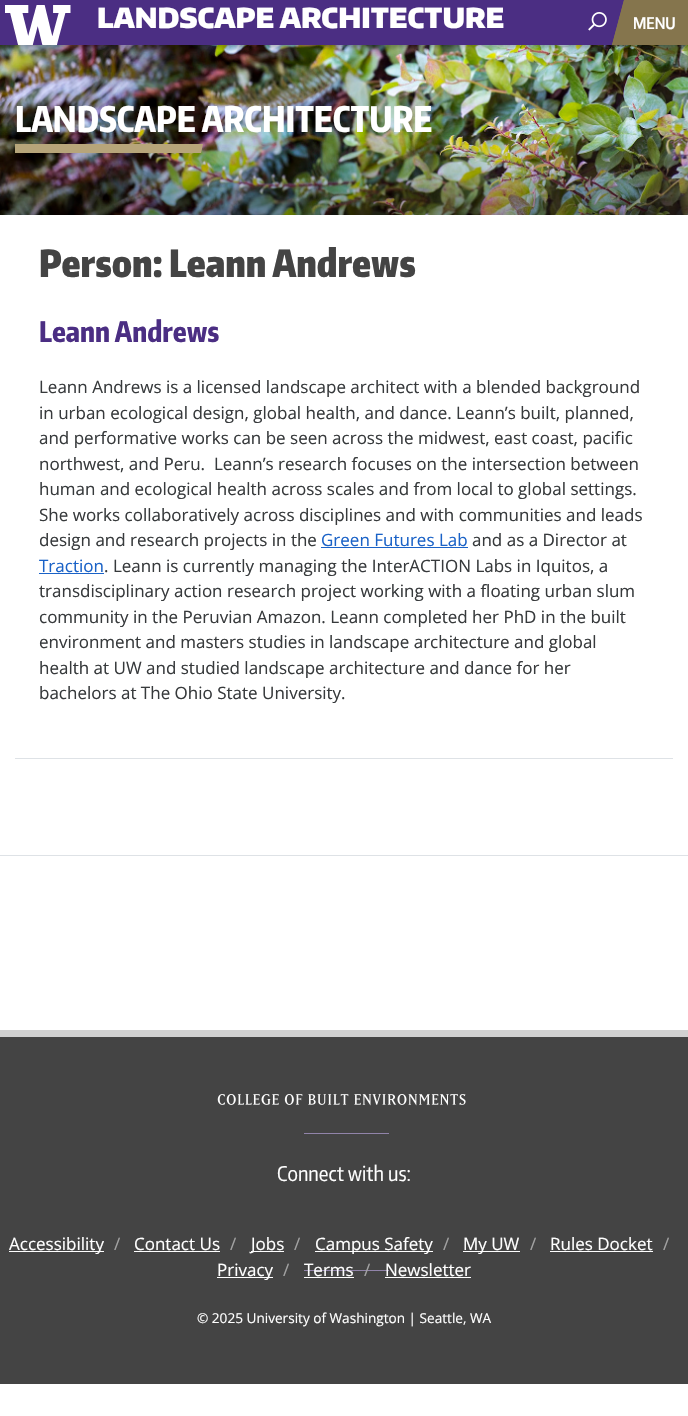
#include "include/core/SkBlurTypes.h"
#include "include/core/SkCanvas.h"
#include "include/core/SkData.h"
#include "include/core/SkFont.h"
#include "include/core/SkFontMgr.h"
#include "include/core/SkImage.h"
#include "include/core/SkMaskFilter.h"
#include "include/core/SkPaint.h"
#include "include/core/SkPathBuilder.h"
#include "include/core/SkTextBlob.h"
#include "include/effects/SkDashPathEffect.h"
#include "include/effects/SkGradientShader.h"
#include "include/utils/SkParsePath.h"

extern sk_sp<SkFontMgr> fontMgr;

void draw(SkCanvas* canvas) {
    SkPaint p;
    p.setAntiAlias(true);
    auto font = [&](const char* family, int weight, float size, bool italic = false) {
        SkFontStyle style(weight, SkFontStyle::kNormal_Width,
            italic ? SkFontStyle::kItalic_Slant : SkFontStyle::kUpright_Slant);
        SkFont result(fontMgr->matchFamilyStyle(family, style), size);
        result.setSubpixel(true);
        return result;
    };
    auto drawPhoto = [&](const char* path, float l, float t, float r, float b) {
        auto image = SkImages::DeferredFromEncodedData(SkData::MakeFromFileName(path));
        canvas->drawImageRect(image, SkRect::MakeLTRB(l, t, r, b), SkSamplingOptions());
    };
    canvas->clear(0xFFFFFFFF);
    drawPhoto("media/3.png", 0, 45, 688, 215);
    p.setColor(0x4D000000);
    p.setMaskFilter(SkMaskFilter::MakeBlur(kNormal_SkBlurStyle, 2.5f));
    canvas->drawRect(SkRect::MakeLTRB(0, 2, 688, 47), p);
    p.setMaskFilter(nullptr);
    p.setColor(0xFF4B2E83);
    canvas->drawRect(SkRect::MakeLTRB(0, 0, 624, 45), p);
    drawPhoto("media/1.png", 5, 5, 71, 45);
    auto font1 = font("Encode Sans", 900, 27.25f);
    p.setColor(0xFFFFFFFF);
    canvas->drawString("LANDSCAPE ARCHITECTURE", 97, 28, font1, p);
    drawPhoto("media/2.png", 588, 12, 607, 31);
    p.setColor(0xFF85754D);
    canvas->drawRect(SkRect::MakeLTRB(627, 0, 688, 45), p);
    canvas->drawPath(SkPathBuilder().moveTo(624, 0).lineTo(639, 0).lineTo(627, 45).lineTo(612, 45).close().detach(), p);
    canvas->drawPath(SkPathBuilder().moveTo(624, 0).lineTo(625, 0).lineTo(613, 45).lineTo(612, 45).close().detach(), p);
    auto font2 = font("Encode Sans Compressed", 600, 16);
    p.setColor(0xFFFFFFFF);
    canvas->drawString("MENU", 633, 29, font2, p);
    auto font3 = font("Encode Sans Compressed", 800, 35);
    canvas->drawString("LANDSCAPE ARCHITECTURE", 15, 132, font3, p);
    canvas->save();
    canvas->clipRect(SkRect::MakeLTRB(15, 144, 673, 153));
    p.setColor(0xFFB7A57A);
    canvas->drawPath(SkPathBuilder().moveTo(11, 144).lineTo(203, 144).lineTo(201, 153).lineTo(9, 153).close().detach(), p);
    canvas->restore();
    auto font4 = font("Encode Sans Compressed", 900, 37);
    p.setColor(0xFF444444);
    canvas->drawString("Person: Leann Andrews", 39, 277, font4, p);
    p.setColor(0xFFDEE2E6);
    canvas->drawRect(SkRect::MakeLTRB(15, 758, 673, 759), p);
    auto font5 = font("Encode Sans Compressed", 800, 28);
    p.setColor(0xFF4B2E83);
    canvas->drawString("Leann Andrews", 39, 342, font5, p);
    auto font6 = font("Open Sans", 400, 17);
    p.setColor(0xFF373A3C);
    {
        const struct { const char* s; float x, y; } items[] = {
            {"Leann Andrews is a licensed landscape architect with a blended background", 39, 393},
            {"in urban ecological design, global health, and dance. Leann’s built, planned,", 39, 419},
            {"and performative works can be seen across the midwest, east coast, pacific", 39, 444},
            {"northwest, and Peru.  Leann’s research focuses on the intersection between", 39, 470},
            {"human and ecological health across scales and from local to global settings.", 39, 495},
            {"She works collaboratively across disciplines and with communities and leads", 39, 521},
            {"design and research projects in the", 39, 546},
        };
        for (auto [s, x, y] : items) {
            canvas->drawString(s, x, y, font6, p);
        }
    }
    p.setColor(0xFF1A62C7);
    canvas->drawString("Green Futures Lab", 321, 546, font6, p);
    canvas->drawRect(SkRect::MakeLTRB(321, 547, 468, 548), p);
    p.setColor(0xFF373A3C);
    canvas->drawString("and as a Director at", 472, 546, font6, p);
    p.setColor(0xFF1A62C7);
    canvas->drawString("Traction", 39, 572, font6, p);
    canvas->drawRect(SkRect::MakeLTRB(39, 573, 104, 574), p);
    p.setColor(0xFF373A3C);
    {
        const struct { const char* s; float x, y; } items[] = {
            {". Leann is currently managing the InterACTION Labs in Iquitos, a", 104, 572},
            {"transdisciplinary action research project working with a floating urban slum", 39, 597},
            {"community in the Peruvian Amazon. Leann completed her PhD in the built", 39, 623},
            {"environment and masters studies in landscape architecture and global", 39, 648},
            {"health at UW and studied landscape architecture and dance for her", 39, 674},
            {"bachelors at The Ohio State University.", 39, 699},
        };
        for (auto [s, x, y] : items) {
            canvas->drawString(s, x, y, font6, p);
        }
    }
    {
        const struct { float l, t, r, b; SkColor color; } items[] = {
            {0, 855, 688, 856, 0xFFDEE2E6},
            {0, 1037, 688, 1384, 0xFF444444},
            {0, 1030, 688, 1037, 0xFFD1D1D1},
        };
        for (auto [l, t, r, b, color] : items) {
            p.setColor(color);
            canvas->drawRect(SkRect::MakeLTRB(l, t, r, b), p);
        }
    }
    drawPhoto("media/4.png", 217, 1094, 466, 1106);
    p.setColor(0xFF9184AA);
    canvas->drawRect(SkRect::MakeLTRB(304, 1133, 389, 1134), p);
    auto font7 = font("Encode Sans Condensed", 400, 20);
    p.setColor(0xFFFFFFFF);
    canvas->drawString("Connect with us:", 277, 1181, font7, p);
    p.setColor(0xFF9184AA);
    canvas->drawRect(SkRect::MakeLTRB(304, 1270, 389, 1271), p);
    p.setColor(0xFFFFFFFF);
    canvas->drawRect(SkRect::MakeLTRB(9, 1251, 104, 1252), p);
    canvas->drawString("Accessibility", 9, 1250, font6, p);
    p.setColor(0xFFA2A2A2);
    canvas->drawString("/", 114, 1250, font6, p);
    p.setColor(0xFFFFFFFF);
    canvas->drawString("Contact Us", 134, 1250, font6, p);
    canvas->drawRect(SkRect::MakeLTRB(134, 1251, 220, 1252), p);
    p.setColor(0xFFA2A2A2);
    canvas->drawString("/", 230, 1250, font6, p);
    p.setColor(0xFFFFFFFF);
    canvas->drawRect(SkRect::MakeLTRB(251, 1251, 284, 1252), p);
    canvas->drawString("Jobs", 251, 1250, font6, p);
    p.setColor(0xFFA2A2A2);
    canvas->drawString("/", 294, 1250, font6, p);
    p.setColor(0xFFFFFFFF);
    canvas->drawRect(SkRect::MakeLTRB(315, 1251, 433, 1252), p);
    canvas->drawString("Campus Safety", 315, 1250, font6, p);
    p.setColor(0xFFA2A2A2);
    canvas->drawString("/", 443, 1250, font6, p);
    p.setColor(0xFFFFFFFF);
    canvas->drawRect(SkRect::MakeLTRB(463, 1251, 520, 1252), p);
    canvas->drawString("My UW", 463, 1250, font6, p);
    p.setColor(0xFFA2A2A2);
    canvas->drawString("/", 530, 1250, font6, p);
    p.setColor(0xFFFFFFFF);
    canvas->drawString("Rules Docket", 550, 1250, font6, p);
    canvas->drawRect(SkRect::MakeLTRB(550, 1251, 653, 1252), p);
    p.setColor(0xFFA2A2A2);
    canvas->drawString("/", 663, 1250, font6, p);
    p.setColor(0xFFFFFFFF);
    canvas->drawRect(SkRect::MakeLTRB(217, 1277, 273, 1278), p);
    canvas->drawString("Privacy", 217, 1276, font6, p);
    p.setColor(0xFFA2A2A2);
    canvas->drawString("/", 283, 1276, font6, p);
    p.setColor(0xFFFFFFFF);
    canvas->drawString("Terms", 304, 1276, font6, p);
    canvas->drawRect(SkRect::MakeLTRB(304, 1277, 354, 1278), p);
    p.setColor(0xFFA2A2A2);
    canvas->drawString("/", 364, 1276, font6, p);
    p.setColor(0xFFFFFFFF);
    canvas->drawString("Newsletter", 385, 1276, font6, p);
    canvas->drawRect(SkRect::MakeLTRB(385, 1277, 471, 1278), p);
    auto font8 = font("Open Sans", 400, 13.6f);
    canvas->drawString("© 2025 University of Washington | Seattle, WA", 197, 1323, font8, p);
}
